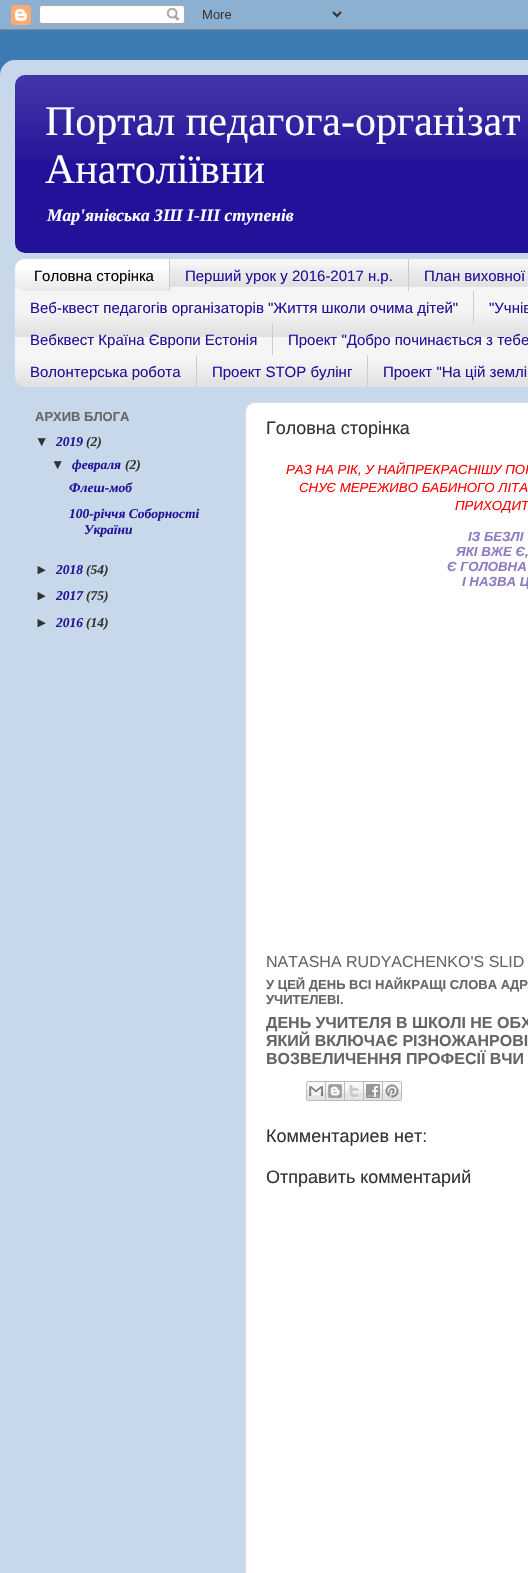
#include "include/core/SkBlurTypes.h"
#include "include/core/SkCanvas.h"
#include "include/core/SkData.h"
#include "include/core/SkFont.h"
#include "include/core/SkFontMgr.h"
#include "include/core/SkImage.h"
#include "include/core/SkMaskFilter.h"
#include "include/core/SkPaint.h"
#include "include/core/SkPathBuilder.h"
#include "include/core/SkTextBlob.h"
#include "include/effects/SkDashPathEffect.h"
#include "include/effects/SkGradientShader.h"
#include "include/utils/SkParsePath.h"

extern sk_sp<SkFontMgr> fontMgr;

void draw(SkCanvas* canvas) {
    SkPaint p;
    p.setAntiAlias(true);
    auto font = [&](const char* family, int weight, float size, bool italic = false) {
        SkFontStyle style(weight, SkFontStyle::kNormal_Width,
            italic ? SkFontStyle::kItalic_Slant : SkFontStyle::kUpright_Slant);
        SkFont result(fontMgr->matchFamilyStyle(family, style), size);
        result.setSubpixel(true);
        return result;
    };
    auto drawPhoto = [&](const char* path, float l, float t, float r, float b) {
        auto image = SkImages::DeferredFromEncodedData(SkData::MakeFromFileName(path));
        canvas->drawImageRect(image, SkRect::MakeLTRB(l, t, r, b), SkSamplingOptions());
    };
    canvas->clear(0xFF3D7BB4);
    drawPhoto("media/1.png", 0, 0, 528, 30);
    drawPhoto("media/2.png", 0, 60, 528, 1573);
    p.setColor(0xFF221199);
    canvas->drawRoundRect(SkRect::MakeLTRB(15, 75, 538, 253), 10, 10, p);
    drawPhoto("media/3.png", 15, 75, 528, 159);
    auto font1 = font("Liberation Serif", 400, 42);
    p.setColor(0xFFFFFFFF);
    canvas->drawString("Портал педагога-організат", 45, 135, font1, p);
    canvas->drawString("Анатоліївни", 45, 183, font1, p);
    auto font2 = font("Liberation Serif", 700, 17.5f, true);
    canvas->drawString("Мар'янівська ЗШ I-III ступенів", 47, 221, font2, p);
    p.setColor(0xFFF5F5F5);
    canvas->drawRoundRect(SkRect::MakeLTRB(15, 259, 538, 387), 10, 10, p);
    drawPhoto("media/4.png", 15, 266, 528, 387);
    p.setColor(0xFFFFFFFF);
    canvas->drawPath(SkPathBuilder().moveTo(25, 259).lineTo(170, 259).lineTo(170, 291).lineTo(25, 291).cubicTo(19.5f, 291, 15, 286.5f, 15, 281).lineTo(15, 269).cubicTo(15, 263.5f, 19.5f, 259, 25, 259).close().detach(), p);
    drawPhoto("media/5.png", 15, 270, 169, 291);
    p.setColor(0xFFCCCCCC);
    canvas->drawRect(SkRect::MakeLTRB(169, 259, 170, 291), p);
    auto font3 = font("Liberation Sans", 400, 15);
    p.setColor(0xFF000000);
    canvas->drawString("Головна сторінка", 34, 281, font3, p);
    p.setColor(0xFFCCCCCC);
    canvas->drawRect(SkRect::MakeLTRB(408, 259, 409, 291), p);
    p.setColor(0xFF221199);
    canvas->drawString("Перший урок у 2016-2017 н.р.", 185, 281, font3, p);
    canvas->drawString("План виховної", 424, 281, font3, p);
    p.setColor(0xFFCCCCCC);
    canvas->drawRect(SkRect::MakeLTRB(473, 291, 474, 323), p);
    p.setColor(0xFF221199);
    canvas->drawString("Веб-квест педагогів організаторів \"Життя школи очима дітей\"", 30, 313, font3, p);
    canvas->drawString("\"Учнів", 489, 313, font3, p);
    p.setColor(0xFFCCCCCC);
    canvas->drawRect(SkRect::MakeLTRB(272, 323, 273, 355), p);
    p.setColor(0xFF221199);
    canvas->drawString("Вебквест Країна Європи Естонія", 30, 345, font3, p);
    canvas->drawString("Проект \"Добро починається з тебе", 288, 345, font3, p);
    p.setColor(0xFFCCCCCC);
    canvas->drawRect(SkRect::MakeLTRB(196, 355, 197, 387), p);
    p.setColor(0xFF221199);
    canvas->drawString("Волонтерська робота", 30, 377, font3, p);
    p.setColor(0xFFCCCCCC);
    canvas->drawRect(SkRect::MakeLTRB(367, 355, 368, 387), p);
    p.setColor(0xFF221199);
    canvas->drawString("Проект STOP булінг", 212, 377, font3, p);
    canvas->drawString("Проект \"На цій землі", 383, 377, font3, p);
    auto font4 = font("Liberation Sans", 700, 13);
    p.setColor(0xFF666666);
    canvas->drawString("АРХИВ БЛОГА", 35, 421, font4, p);
    auto font5 = font("Liberation Sans", 700, 13.5f, true);
    p.setColor(0xFF333333);
    canvas->drawString("▼", 35, 446, font5, p);
    auto font6 = font("Liberation Serif", 700, 13.5f, true);
    p.setColor(0xFF221199);
    canvas->drawString("2019", 56, 446, font6, p);
    p.setColor(0xFF333333);
    canvas->drawString("(2)", 86, 446, font6, p);
    canvas->drawString("▼", 51, 469, font5, p);
    p.setColor(0xFF221199);
    canvas->drawString("февраля", 72, 469, font6, p);
    p.setColor(0xFF333333);
    canvas->drawString("(2)", 125, 469, font6, p);
    p.setColor(0xFF221199);
    {
        const struct { const char* s; float x, y; } items[] = {
            {"Флеш-моб", 69, 492},
            {"100-річчя Соборності", 69, 518},
            {"України", 84, 534},
        };
        for (auto [s, x, y] : items) {
            canvas->drawString(s, x, y, font6, p);
        }
    }
    p.setColor(0xFF333333);
    canvas->drawString("►", 35, 574, font5, p);
    p.setColor(0xFF221199);
    canvas->drawString("2018", 56, 574, font6, p);
    p.setColor(0xFF333333);
    canvas->drawString("(54)", 86, 574, font6, p);
    canvas->drawString("►", 35, 600, font5, p);
    p.setColor(0xFF221199);
    canvas->drawString("2017", 56, 600, font6, p);
    p.setColor(0xFF333333);
    canvas->drawString("(75)", 86, 600, font6, p);
    canvas->drawString("►", 35, 627, font5, p);
    p.setColor(0xFF221199);
    canvas->drawString("2016", 56, 627, font6, p);
    p.setColor(0xFF333333);
    canvas->drawString("(14)", 86, 627, font6, p);
    p.setColor(0xFFFFFFFF);
    canvas->drawRoundRect(SkRect::MakeLTRB(245.5f, 402.5f, 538.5f, 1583.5f), 9.5f, 9.5f, p);
    p.setStyle(SkPaint::kStroke_Style);
    p.setStrokeWidth(1);
    p.setColor(0xFFDDDDDD);
    canvas->drawRoundRect(SkRect::MakeLTRB(245.5f, 402.5f, 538.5f, 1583.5f), 9.5f, 9.5f, p);
    auto font7 = font("Liberation Sans", 400, 18);
    p.setStyle(SkPaint::kFill_Style);
    p.setColor(0xFF333333);
    canvas->drawString("Головна сторінка", 266, 434, font7, p);
    auto font8 = font("Liberation Sans", 400, 13.25f, true);
    p.setColor(0xFFFF0000);
    {
        const struct { const char* s; float x, y; } items[] = {
            {"РАЗ НА РІК, У НАЙПРЕКРАСНІШУ ПОР", 286, 474},
            {"СНУЄ МЕРЕЖИВО БАБИНОГО ЛІТА,", 299, 492},
            {"ПРИХОДИТ", 455, 510},
        };
        for (auto [s, x, y] : items) {
            canvas->drawString(s, x, y, font8, p);
        }
    }
    auto font9 = font("Liberation Sans", 700, 13.25f, true);
    p.setColor(0xFF8E7CC3);
    {
        const struct { const char* s; float x, y; } items[] = {
            {"ІЗ БЕЗЛІ", 468, 541},
            {"ЯКІ ВЖЕ Є,", 456, 556},
            {"Є ГОЛОВНА", 447, 571},
            {"І НАЗВА Ц", 462, 586},
        };
        for (auto [s, x, y] : items) {
            canvas->drawString(s, x, y, font9, p);
        }
    }
    auto font10 = font("Liberation Sans", 400, 16);
    p.setColor(0xFF666666);
    canvas->drawString("NATASHA RUDYACHENKO'S SLID", 266, 967, font10, p);
    canvas->drawString("У ЦЕЙ ДЕНЬ ВСІ НАЙКРАЩІ СЛОВА АДР", 266, 989, font4, p);
    canvas->drawString("УЧИТЕЛЕВІ.", 266, 1004, font4, p);
    auto font11 = font("Liberation Sans", 700, 16);
    {
        const struct { const char* s; float x, y; } items[] = {
            {"ДЕНЬ УЧИТЕЛЯ В ШКОЛІ НЕ ОБХ", 266, 1028},
            {"ЯКИЙ ВКЛЮЧАЄ РІЗНОЖАНРОВІ", 266, 1046},
            {"ВОЗВЕЛИЧЕННЯ ПРОФЕСІЇ ВЧИ", 266, 1064},
        };
        for (auto [s, x, y] : items) {
            canvas->drawString(s, x, y, font11, p);
        }
    }
    drawPhoto("media/6.png", 306, 1081, 326, 1101);
    drawPhoto("media/7.png", 326, 1081, 345, 1101);
    drawPhoto("media/8.png", 345, 1081, 364, 1101);
    drawPhoto("media/9.png", 364, 1081, 383, 1101);
    drawPhoto("media/10.png", 383, 1081, 402, 1101);
    p.setColor(0xFF333333);
    canvas->drawString("Комментариев нет:", 266, 1142, font7, p);
    canvas->drawString("Отправить комментарий", 266, 1183, font7, p);
}
